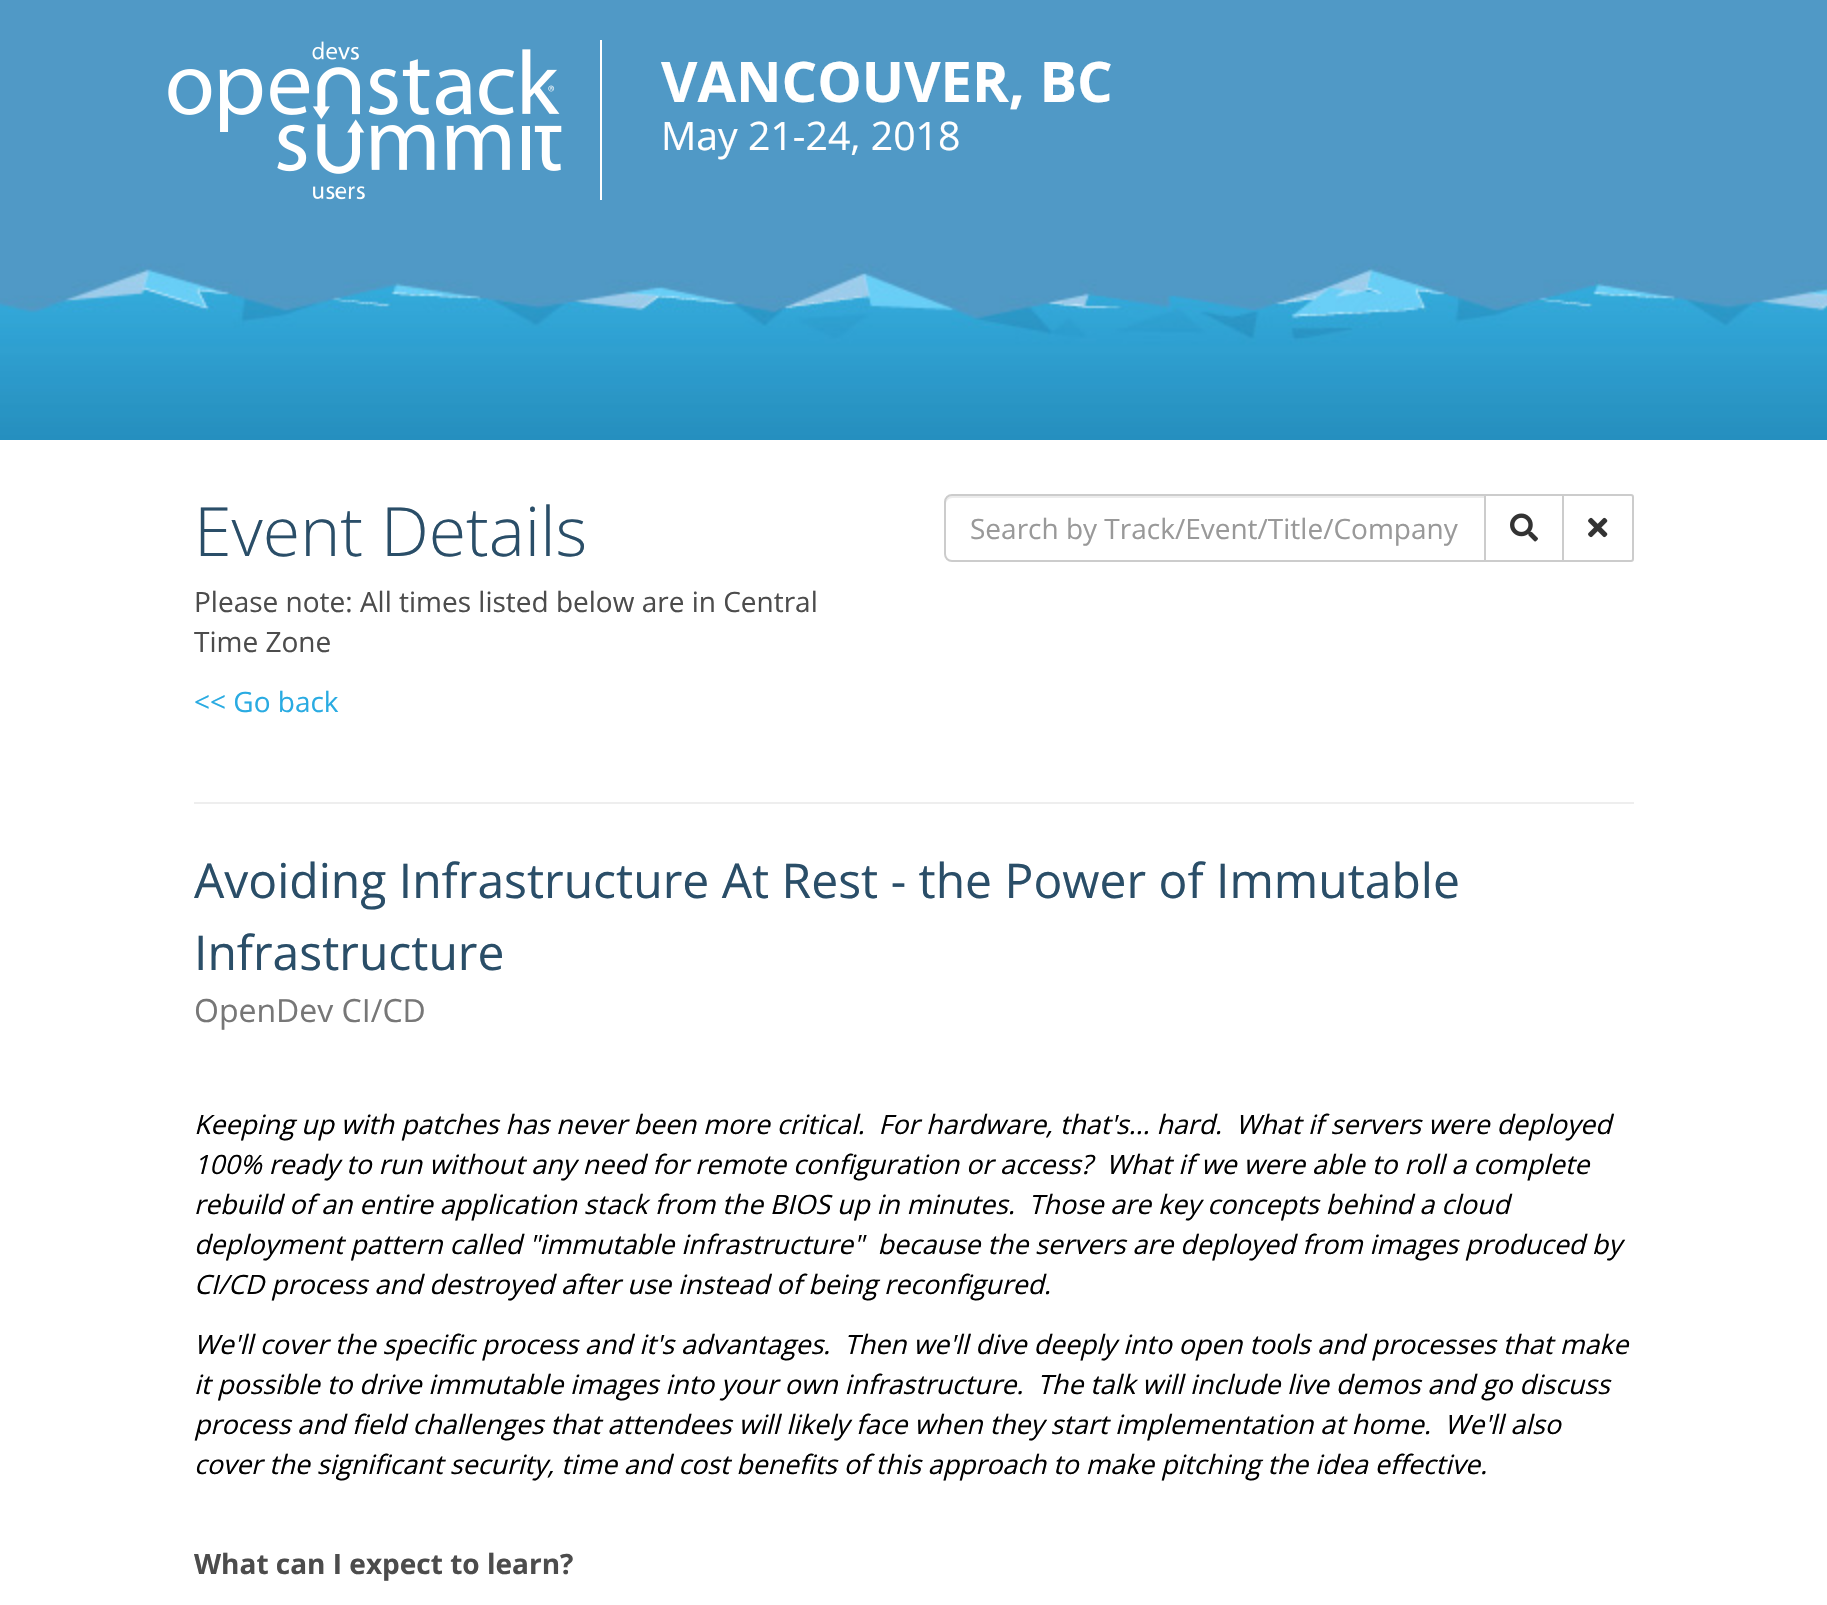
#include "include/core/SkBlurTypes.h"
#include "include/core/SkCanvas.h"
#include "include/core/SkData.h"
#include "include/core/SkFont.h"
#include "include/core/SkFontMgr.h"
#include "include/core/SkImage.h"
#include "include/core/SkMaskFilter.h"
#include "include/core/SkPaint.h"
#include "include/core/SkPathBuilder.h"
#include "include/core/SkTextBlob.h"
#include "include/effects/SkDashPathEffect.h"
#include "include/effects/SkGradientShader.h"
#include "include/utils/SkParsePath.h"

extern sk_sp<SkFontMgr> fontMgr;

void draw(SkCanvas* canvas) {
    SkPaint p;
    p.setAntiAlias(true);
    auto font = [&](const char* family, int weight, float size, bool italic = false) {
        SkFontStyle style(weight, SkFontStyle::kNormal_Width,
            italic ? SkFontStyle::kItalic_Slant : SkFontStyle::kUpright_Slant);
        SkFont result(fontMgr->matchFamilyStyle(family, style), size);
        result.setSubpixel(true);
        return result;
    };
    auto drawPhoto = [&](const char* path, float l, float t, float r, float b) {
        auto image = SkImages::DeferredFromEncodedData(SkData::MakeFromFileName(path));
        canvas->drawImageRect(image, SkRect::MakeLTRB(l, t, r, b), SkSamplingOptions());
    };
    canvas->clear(0xFFFFFFFF);
    drawPhoto("media/1.png", 0, 0, 1827, 440);
    drawPhoto("media/2.png", 168, 41, 562, 200);
    p.setColor(0xFFFFFFFF);
    canvas->drawRect(SkRect::MakeLTRB(600, 40, 602, 200), p);
    auto font1 = font("Open Sans", 700, 56);
    canvas->drawString("VANCOUVER, BC", 661, 102, font1, p);
    auto font2 = font("Open Sans", 400, 39.25f);
    canvas->drawString("May 21-24, 2018", 661, 150, font2, p);
    auto font3 = font("Open Sans", 300, 68);
    p.setColor(0xFF2A4E68);
    canvas->drawString("Event Details", 194, 556, font3, p);
    auto font4 = font("Open Sans", 400, 28);
    p.setColor(0xFF4C4C4C);
    canvas->drawString("Please note: All times listed below are in Central", 194, 612, font4, p);
    canvas->drawString("Time Zone", 194, 652, font4, p);
    p.setColor(0xFF29ABE2);
    canvas->drawString("<< Go back", 194, 712, font4, p);
    p.setColor(0xFFECECEC);
    canvas->drawPath(SkPathBuilder().moveTo(952, 498).lineTo(1484, 498).lineTo(1484, 496).lineTo(952, 496).cubicTo(949, 496, 946, 499, 946, 502).lineTo(946, 504).cubicTo(946, 501, 949, 498, 952, 498).close().detach(), p);
    p.setStyle(SkPaint::kStroke_Style);
    p.setStrokeWidth(2);
    p.setColor(0xFFCCCCCC);
    canvas->drawPath(SkPathBuilder().moveTo(952, 495).lineTo(1485, 495).lineTo(1485, 561).lineTo(952, 561).cubicTo(948, 561, 945, 558, 945, 554).lineTo(945, 502).cubicTo(945, 498, 948, 495, 952, 495).close().detach(), p);
    p.setStyle(SkPaint::kFill_Style);
    p.setColor(0xFF999999);
    canvas->drawString("Search by Track/Event/Title/Company", 970, 539, font4, p);
    p.setStyle(SkPaint::kStroke_Style);
    p.setColor(0xFFCCCCCC);
    canvas->drawRect(SkRect::MakeLTRB(1485, 495, 1563, 561), p);
    drawPhoto("media/3.png", 1510, 513, 1538, 542);
    p.setStyle(SkPaint::kFill_Style);
    p.setColor(0xFFFFFFFF);
    canvas->drawPath(SkPathBuilder().moveTo(1563, 495).lineTo(1631, 495).cubicTo(1632, 495, 1633, 496, 1633, 497).lineTo(1633, 559).cubicTo(1633, 560, 1632, 561, 1631, 561).lineTo(1563, 561).close().detach(), p);
    p.setStyle(SkPaint::kStroke_Style);
    p.setColor(0xFFCCCCCC);
    canvas->drawPath(SkPathBuilder().moveTo(1563, 495).lineTo(1631, 495).cubicTo(1632, 495, 1633, 496, 1633, 497).lineTo(1633, 559).cubicTo(1633, 560, 1632, 561, 1631, 561).lineTo(1563, 561).close().detach(), p);
    drawPhoto("media/4.png", 1588, 517, 1608, 538);
    p.setStyle(SkPaint::kFill_Style);
    p.setColor(0xFFEEEEEE);
    canvas->drawRect(SkRect::MakeLTRB(194, 802, 1634, 804), p);
    auto font5 = font("Open Sans", 400, 48);
    p.setColor(0xFF2A4E68);
    canvas->drawString("Avoiding Infrastructure At Rest - the Power of Immutable", 194, 898, font5, p);
    canvas->drawString("Infrastructure", 194, 970, font5, p);
    auto font6 = font("Open Sans", 400, 32);
    p.setColor(0xFF777777);
    canvas->drawString("OpenDev CI/CD", 194, 1022, font6, p);
    auto font7 = font("Open Sans", 400, 26.67f, true);
    p.setColor(0xFF000000);
    {
        const struct { const char* s; float x, y; } items[] = {
            {"Keeping up with patches has never been more critical.  For hardware, that's... hard.  What if servers were deployed", 194, 1134},
            {"100% ready to run without any need for remote configuration or access?  What if we were able to roll a complete", 194, 1174},
            {"rebuild of an entire application stack from the BIOS up in minutes.  Those are key concepts behind a cloud", 194, 1214},
            {"deployment pattern called \"immutable infrastructure\"  because the servers are deployed from images produced by", 194, 1254},
            {"CI/CD process and destroyed after use instead of being reconfigured.", 194, 1294},
            {"We'll cover the specific process and it's advantages.  Then we'll dive deeply into open tools and processes that make", 194, 1354},
            {"it possible to drive immutable images into your own infrastructure.  The talk will include live demos and go discuss", 194, 1394},
            {"process and field challenges that attendees will likely face when they start implementation at home.  We'll also", 194, 1434},
            {"cover the significant security, time and cost benefits of this approach to make pitching the idea effective.", 194, 1474},
        };
        for (auto [s, x, y] : items) {
            canvas->drawString(s, x, y, font7, p);
        }
    }
    auto font8 = font("Open Sans", 700, 28);
    p.setColor(0xFF4C4C4C);
    canvas->drawString("What can I expect to learn?", 194, 1574, font8, p);
}
